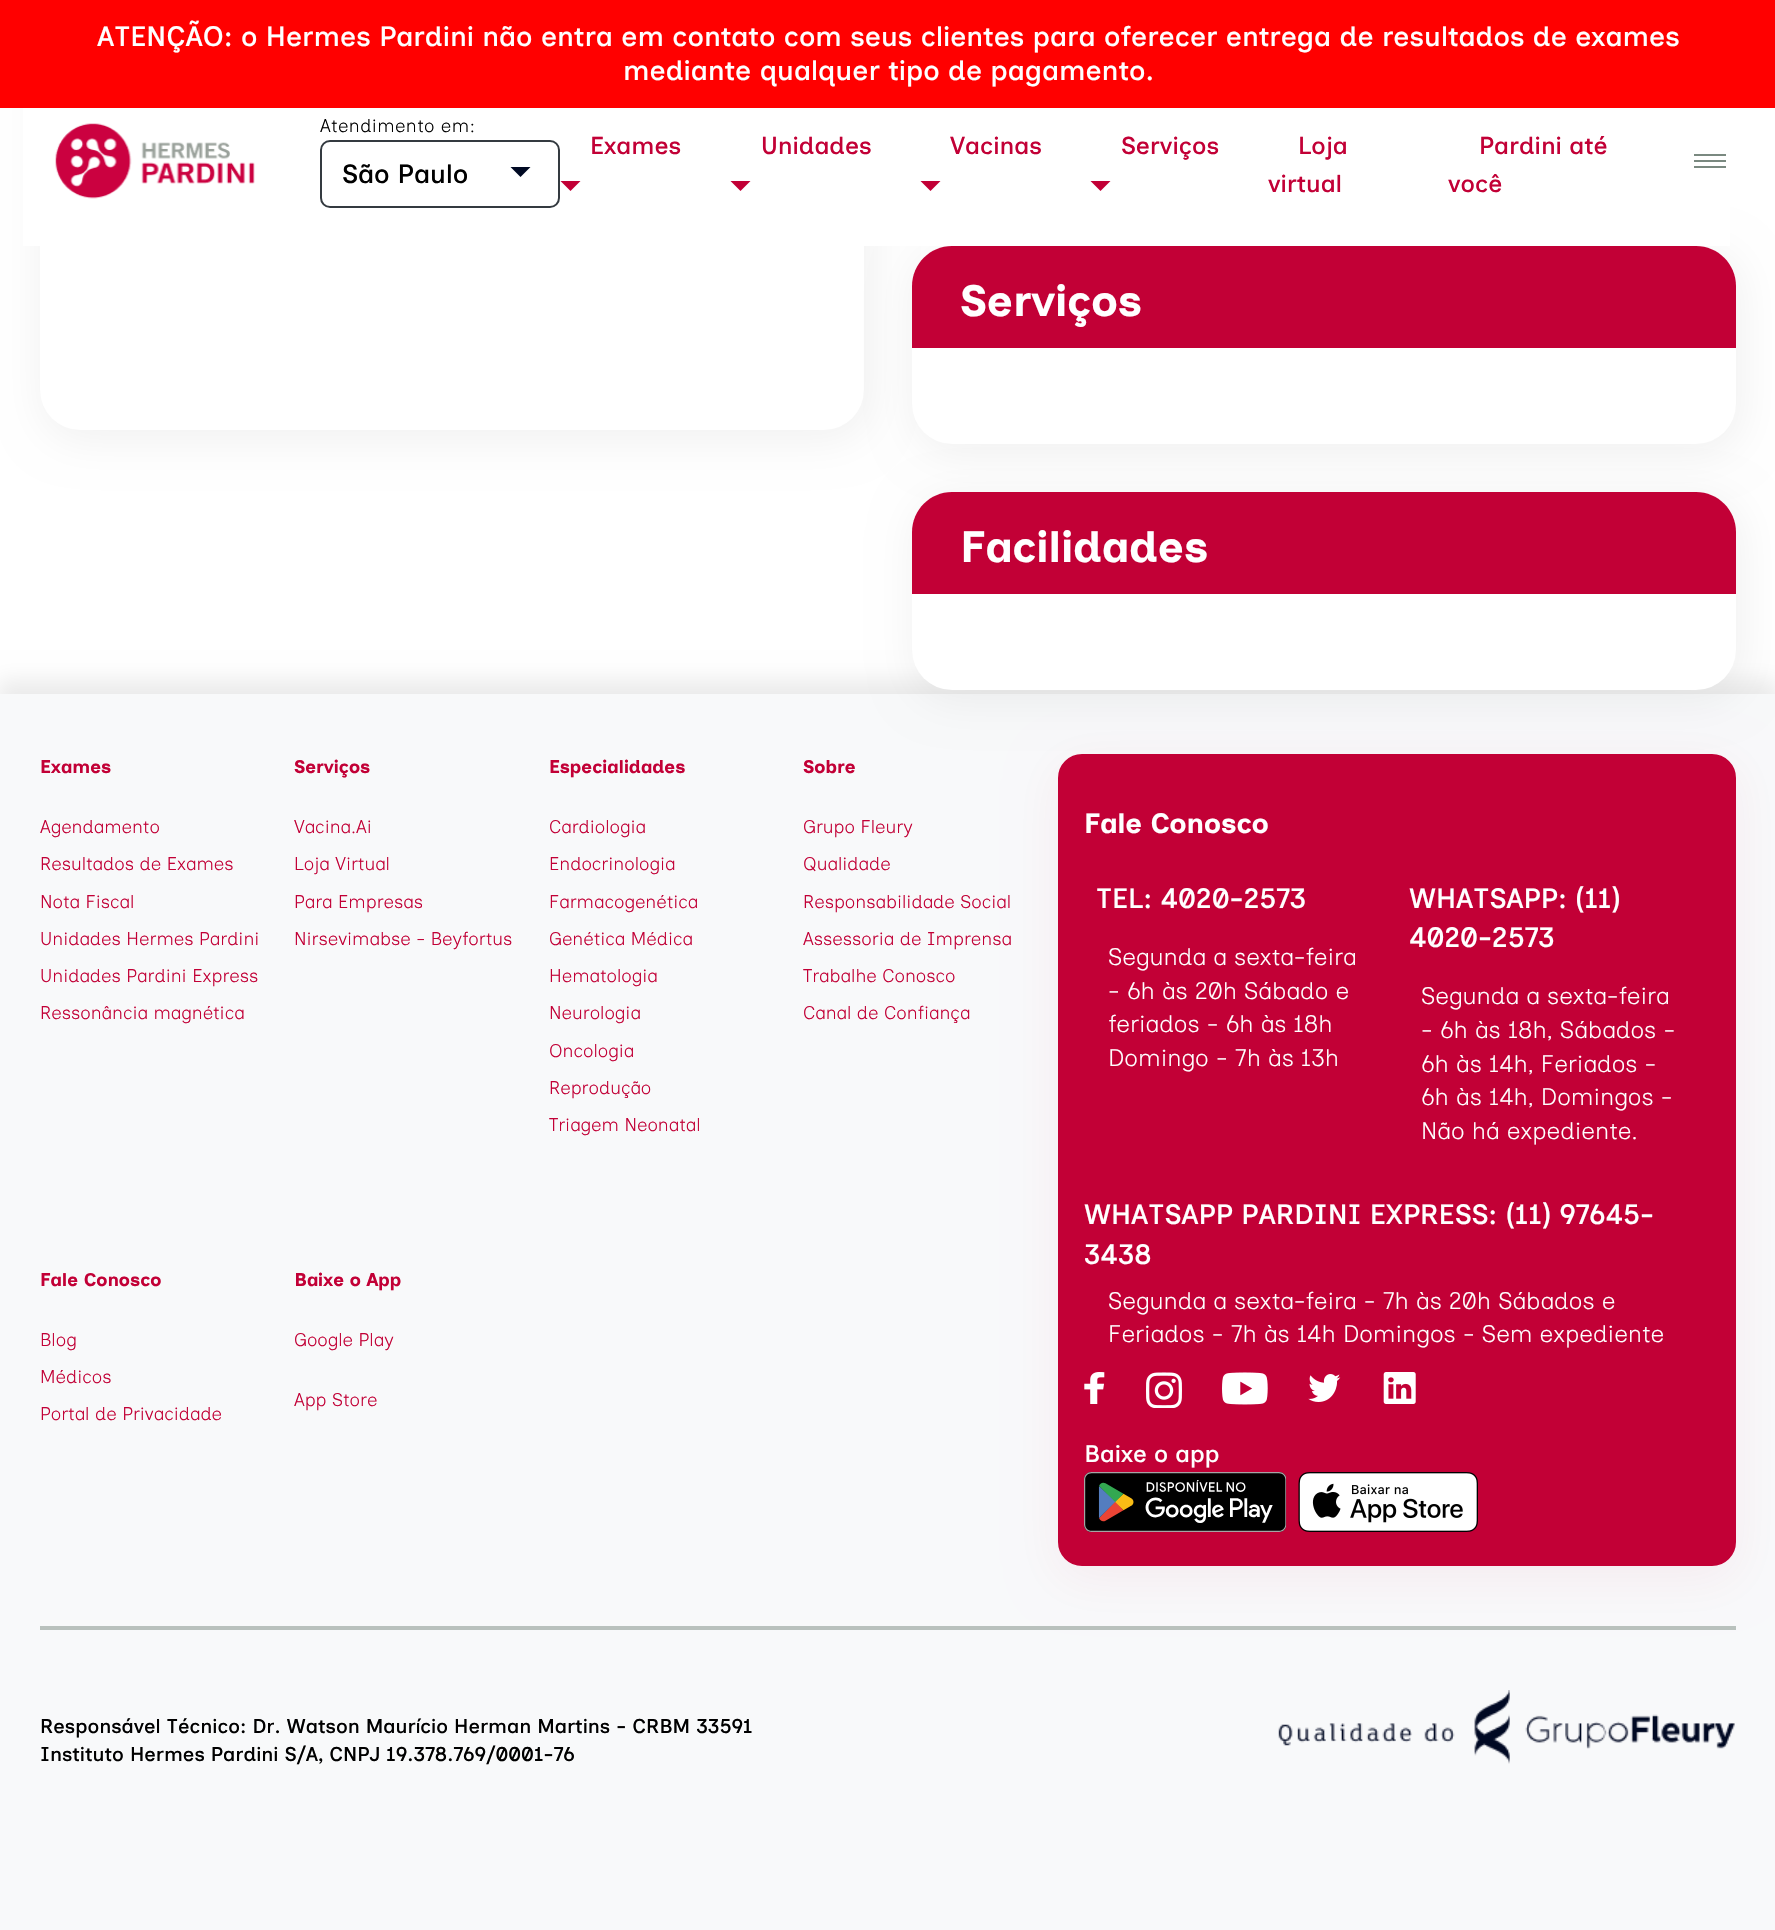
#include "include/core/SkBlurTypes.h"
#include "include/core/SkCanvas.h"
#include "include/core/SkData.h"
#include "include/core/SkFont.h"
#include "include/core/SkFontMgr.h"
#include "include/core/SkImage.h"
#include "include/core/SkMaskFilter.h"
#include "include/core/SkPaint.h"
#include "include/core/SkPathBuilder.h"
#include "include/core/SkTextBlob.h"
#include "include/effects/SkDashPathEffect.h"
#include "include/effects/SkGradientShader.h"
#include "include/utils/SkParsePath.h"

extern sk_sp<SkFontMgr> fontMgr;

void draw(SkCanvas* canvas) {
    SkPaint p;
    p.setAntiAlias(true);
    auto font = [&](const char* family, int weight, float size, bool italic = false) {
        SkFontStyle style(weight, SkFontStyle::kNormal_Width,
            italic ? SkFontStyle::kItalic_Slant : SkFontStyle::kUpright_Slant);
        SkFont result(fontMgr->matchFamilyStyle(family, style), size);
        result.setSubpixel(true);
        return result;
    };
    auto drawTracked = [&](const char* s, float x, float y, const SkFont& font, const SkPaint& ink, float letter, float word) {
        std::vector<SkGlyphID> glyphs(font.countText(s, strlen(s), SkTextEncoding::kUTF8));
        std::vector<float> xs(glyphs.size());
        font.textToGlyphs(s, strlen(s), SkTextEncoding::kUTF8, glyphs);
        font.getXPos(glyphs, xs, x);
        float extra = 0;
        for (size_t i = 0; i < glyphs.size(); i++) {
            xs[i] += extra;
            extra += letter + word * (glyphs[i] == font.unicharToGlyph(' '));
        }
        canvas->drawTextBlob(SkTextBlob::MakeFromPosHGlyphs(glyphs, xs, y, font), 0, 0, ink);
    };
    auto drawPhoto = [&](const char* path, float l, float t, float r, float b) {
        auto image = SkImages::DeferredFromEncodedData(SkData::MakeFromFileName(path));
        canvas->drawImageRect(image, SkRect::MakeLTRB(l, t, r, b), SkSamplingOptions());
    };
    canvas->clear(0xFFFFFFFF);
    p.setColor(0x0D000000);
    p.setMaskFilter(SkMaskFilter::MakeBlur(kNormal_SkBlurStyle, 20));
    canvas->drawRoundRect(SkRect::MakeLTRB(40, -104, 872, 442), 44, 44, p);
    p.setMaskFilter(nullptr);
    p.setColor(0xFFFFFFFF);
    canvas->drawRoundRect(SkRect::MakeLTRB(40, -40, 864, 430), 40, 40, p);
    p.setColor(0xFFFF0000);
    canvas->drawRect(SkRect::MakeLTRB(0, 0, 1775, 108), p);
    auto font1 = font("Inclusive Sans", 500, 28);
    p.setColor(0xFFFFFFFF);
    canvas->drawString("ATENÇÃO: o Hermes Pardini não entra em contato com seus clientes para oferecer entrega de resultados de exames", 97, 46, font1, p);
    canvas->drawString("mediante qualquer tipo de pagamento.", 623, 80, font1, p);
    p.setColor(0x0D000000);
    p.setMaskFilter(SkMaskFilter::MakeBlur(kNormal_SkBlurStyle, 20));
    canvas->drawRoundRect(SkRect::MakeLTRB(912, 250, 1744, 456), 44, 44, p);
    p.setMaskFilter(nullptr);
    p.setColor(0xFFFFFFFF);
    canvas->drawRect(SkRect::MakeLTRB(23, 108, 1730, 246), p);
    drawPhoto("media/1.png", 55, 123, 255, 199);
    auto font2 = font("Inclusive Sans", 300, 18.4f);
    p.setColor(0xFF000000);
    drawTracked("Atendimento em:", 320, 132, font2, p, 0.4f, 0);
    p.setStyle(SkPaint::kStroke_Style);
    p.setStrokeWidth(2);
    p.setColor(0xFF343A40);
    canvas->drawRoundRect(SkRect::MakeLTRB(321, 141, 559, 207), 9, 9, p);
    p.setStyle(SkPaint::kFill_Style);
    p.setColor(0xFF000923);
    canvas->drawPath(SkPathBuilder().moveTo(530.5f, 167).lineTo(510.5f, 167).lineTo(520.5f, 177).close().detach(), p);
    auto font3 = font("Inclusive Sans", 500, 26.5f);
    p.setColor(0xFF000000);
    canvas->drawString("São Paulo", 342, 183, font3, p);
    auto font4 = font("Inclusive Sans", 500, 24.5f);
    p.setColor(0xFFC20036);
    canvas->drawString("Exames", 590, 154, font4, p);
    canvas->drawPath(SkPathBuilder().moveTo(570.5f, 191).lineTo(560.5f, 181).lineTo(580.5f, 181).close().detach(), p);
    canvas->drawString("Unidades", 761, 154, font4, p);
    canvas->drawPath(SkPathBuilder().moveTo(740.5f, 191).lineTo(730.5f, 181).lineTo(750.5f, 181).close().detach(), p);
    canvas->drawString("Vacinas", 950, 154, font4, p);
    canvas->drawPath(SkPathBuilder().moveTo(930.5f, 191).lineTo(920.5f, 181).lineTo(940.5f, 181).close().detach(), p);
    canvas->drawString("Serviços", 1121, 154, font4, p);
    canvas->drawPath(SkPathBuilder().moveTo(1100.5f, 191).lineTo(1090.5f, 181).lineTo(1110.5f, 181).close().detach(), p);
    {
        const struct { const char* s; float x, y; } items[] = {
            {"Loja", 1298, 154},
            {"virtual", 1268, 192},
            {"Pardini até", 1479, 154},
            {"você", 1448, 192},
        };
        for (auto [s, x, y] : items) {
            canvas->drawString(s, x, y, font4, p);
        }
    }
    {
        const struct { float l, t, r, b; SkColor color; } items[] = {
            {1694, 154, 1726, 156, 0xFF7A8980},
            {1694, 160, 1726, 162, 0xFF7A8980},
            {1694, 166, 1726, 168, 0xFF7A8980},
        };
        for (auto [l, t, r, b, color] : items) {
            p.setColor(color);
            canvas->drawRect(SkRect::MakeLTRB(l, t, r, b), p);
        }
    }
    p.setColor(0xFFFFFFFF);
    canvas->drawRoundRect(SkRect::MakeLTRB(912, 246, 1736, 444), 40, 40, p);
    p.setColor(0xFFC20036);
    canvas->drawPath(SkPathBuilder().moveTo(952, 246).lineTo(1696, 246).cubicTo(1718, 246, 1736, 264, 1736, 286).lineTo(1736, 348).lineTo(912, 348).lineTo(912, 286).cubicTo(912, 264, 930, 246, 952, 246).close().detach(), p);
    auto font5 = font("Inclusive Sans", 700, 44);
    p.setColor(0xFFFFFFFF);
    canvas->drawString("Serviços", 960, 316, font5, p);
    p.setColor(0x14000000);
    p.setMaskFilter(SkMaskFilter::MakeBlur(kNormal_SkBlurStyle, 10));
    canvas->drawRect(SkRect::MakeLTRB(-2, 680, 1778, 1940), p);
    p.setMaskFilter(nullptr);
    p.setColor(0xFFF8F9FA);
    canvas->drawRect(SkRect::MakeLTRB(0, 694, 1775, 1930), p);
    p.setColor(0x0DC20036);
    p.setMaskFilter(SkMaskFilter::MakeBlur(kNormal_SkBlurStyle, 24));
    canvas->drawRoundRect(SkRect::MakeLTRB(1056, 764, 1738, 1580), 26, 26, p);
    p.setMaskFilter(nullptr);
    p.setColor(0xFFC20036);
    canvas->drawRoundRect(SkRect::MakeLTRB(1059, 755, 1735, 1565), 23, 23, p);
    p.setStyle(SkPaint::kStroke_Style);
    canvas->drawRoundRect(SkRect::MakeLTRB(1059, 755, 1735, 1565), 23, 23, p);
    p.setStyle(SkPaint::kFill_Style);
    p.setColor(0x0D000000);
    p.setMaskFilter(SkMaskFilter::MakeBlur(kNormal_SkBlurStyle, 20));
    canvas->drawRoundRect(SkRect::MakeLTRB(912, 496, 1744, 702), 44, 44, p);
    p.setMaskFilter(nullptr);
    p.setColor(0xFFFFFFFF);
    canvas->drawRoundRect(SkRect::MakeLTRB(912, 492, 1736, 690), 40, 40, p);
    p.setColor(0xFFC20036);
    canvas->drawPath(SkPathBuilder().moveTo(952, 492).lineTo(1696, 492).cubicTo(1718, 492, 1736, 510, 1736, 532).lineTo(1736, 594).lineTo(912, 594).lineTo(912, 532).cubicTo(912, 510, 930, 492, 952, 492).close().detach(), p);
    p.setColor(0xFFFFFFFF);
    canvas->drawString("Facilidades", 960, 562, font5, p);
    auto font6 = font("Inclusive Sans", 700, 18.4f);
    p.setColor(0xFFC20036);
    canvas->drawString("Exames", 40, 773, font6, p);
    {
        const struct { const char* s; float x, y; } items[] = {
            {"Agendamento", 40, 833},
            {"Resultados de Exames", 40, 870},
            {"Nota Fiscal", 40, 908},
            {"Unidades Hermes Pardini", 40, 945},
            {"Unidades Pardini Express", 40, 982},
            {"Ressonância magnética", 40, 1019},
        };
        for (auto [s, x, y] : items) {
            canvas->drawString(s, x, y, font2, p);
        }
    }
    canvas->drawString("Serviços", 294, 773, font6, p);
    {
        const struct { const char* s; float x, y; } items[] = {
            {"Vacina.Ai", 294, 833},
            {"Loja Virtual", 294, 870},
            {"Para Empresas", 294, 908},
            {"Nirsevimabse - Beyfortus", 294, 945},
        };
        for (auto [s, x, y] : items) {
            canvas->drawString(s, x, y, font2, p);
        }
    }
    canvas->drawString("Especialidades", 549, 773, font6, p);
    {
        const struct { const char* s; float x, y; } items[] = {
            {"Cardiologia", 549, 833},
            {"Endocrinologia", 549, 870},
            {"Farmacogenética", 549, 908},
            {"Genética Médica", 549, 945},
            {"Hematologia", 549, 982},
            {"Neurologia", 549, 1019},
            {"Oncologia", 549, 1057},
            {"Reprodução", 549, 1094},
            {"Triagem Neonatal", 549, 1131},
        };
        for (auto [s, x, y] : items) {
            canvas->drawString(s, x, y, font2, p);
        }
    }
    canvas->drawString("Sobre", 803, 773, font6, p);
    {
        const struct { const char* s; float x, y; } items[] = {
            {"Grupo Fleury", 803, 833},
            {"Qualidade", 803, 870},
            {"Responsabilidade Social", 803, 908},
            {"Assessoria de Imprensa", 803, 945},
            {"Trabalhe Conosco", 803, 982},
            {"Canal de Confiança", 803, 1019},
        };
        for (auto [s, x, y] : items) {
            canvas->drawString(s, x, y, font2, p);
        }
    }
    canvas->drawString("Fale Conosco", 40, 1286, font6, p);
    {
        const struct { const char* s; float x, y; } items[] = {
            {"Blog", 40, 1346},
            {"Médicos", 40, 1383},
            {"Portal de Privacidade", 40, 1420},
        };
        for (auto [s, x, y] : items) {
            canvas->drawString(s, x, y, font2, p);
        }
    }
    canvas->drawString("Baixe o App", 294, 1286, font6, p);
    canvas->drawString("Google Play", 294, 1346, font2, p);
    canvas->drawString("App Store", 294, 1406, font2, p);
    auto font7 = font("Inclusive Sans", 700, 28);
    p.setColor(0xFFFFFFFF);
    canvas->drawString("Fale Conosco", 1084, 833, font7, p);
    canvas->drawString("TEL: 4020-2573", 1096, 908, font1, p);
    auto font8 = font("Inclusive Sans", 300, 24);
    {
        const struct { const char* s; float x, y; } items[] = {
            {"Segunda a sexta-feira", 1108, 965},
            {"- 6h às 20h Sábado e", 1108, 999},
            {"feriados - 6h às 18h", 1108, 1032},
            {"Domingo - 7h às 13h", 1108, 1066},
        };
        for (auto [s, x, y] : items) {
            canvas->drawString(s, x, y, font8, p);
        }
    }
    canvas->drawString("WHATSAPP: (11)", 1409, 908, font1, p);
    canvas->drawString("4020-2573", 1409, 947, font1, p);
    {
        const struct { const char* s; float x, y; } items[] = {
            {"Segunda a sexta-feira", 1421, 1004},
            {"- 6h às 18h, Sábados -", 1421, 1038},
            {"6h às 14h, Feriados -", 1421, 1072},
            {"6h às 14h, Domingos -", 1421, 1105},
            {"Não há expediente.", 1421, 1139},
        };
        for (auto [s, x, y] : items) {
            canvas->drawString(s, x, y, font8, p);
        }
    }
    canvas->drawString("WHATSAPP PARDINI EXPRESS: (11) 97645-", 1084, 1224, font1, p);
    canvas->drawString("3438", 1084, 1264, font1, p);
    canvas->drawString("Segunda a sexta-feira - 7h às 20h Sábados e", 1108, 1309, font8, p);
    canvas->drawString("Feriados - 7h às 14h Domingos - Sem expediente", 1108, 1342, font8, p);
    drawPhoto("media/2.png", 1084, 1372, 1105, 1404);
    drawPhoto("media/3.png", 1146, 1372, 1182, 1408);
    drawPhoto("media/4.png", 1222, 1372, 1268, 1405);
    drawPhoto("media/5.png", 1308, 1374, 1341, 1402);
    drawPhoto("media/6.png", 1383, 1372, 1416, 1404);
    auto font9 = font("Inclusive Sans", 500, 24);
    canvas->drawString("Baixe o app", 1084, 1462, font9, p);
    drawPhoto("media/7.png", 1084, 1472, 1287, 1532);
    drawPhoto("media/8.png", 1298, 1472, 1478, 1532);
    p.setColor(0xFFB9C1BD);
    canvas->drawRect(SkRect::MakeLTRB(40, 1626, 1736, 1630), p);
    auto font10 = font("Inclusive Sans", 500, 20);
    p.setColor(0xFF000000);
    canvas->drawString("Responsável Técnico: Dr. Watson Maurício Herman Martins - CRBM 33591", 40, 1733, font10, p);
    canvas->drawString("Instituto Hermes Pardini S/A, CNPJ 19.378.769/0001-76", 40, 1761, font10, p);
    drawPhoto("media/9.png", 1278, 1690, 1735, 1764);
}
